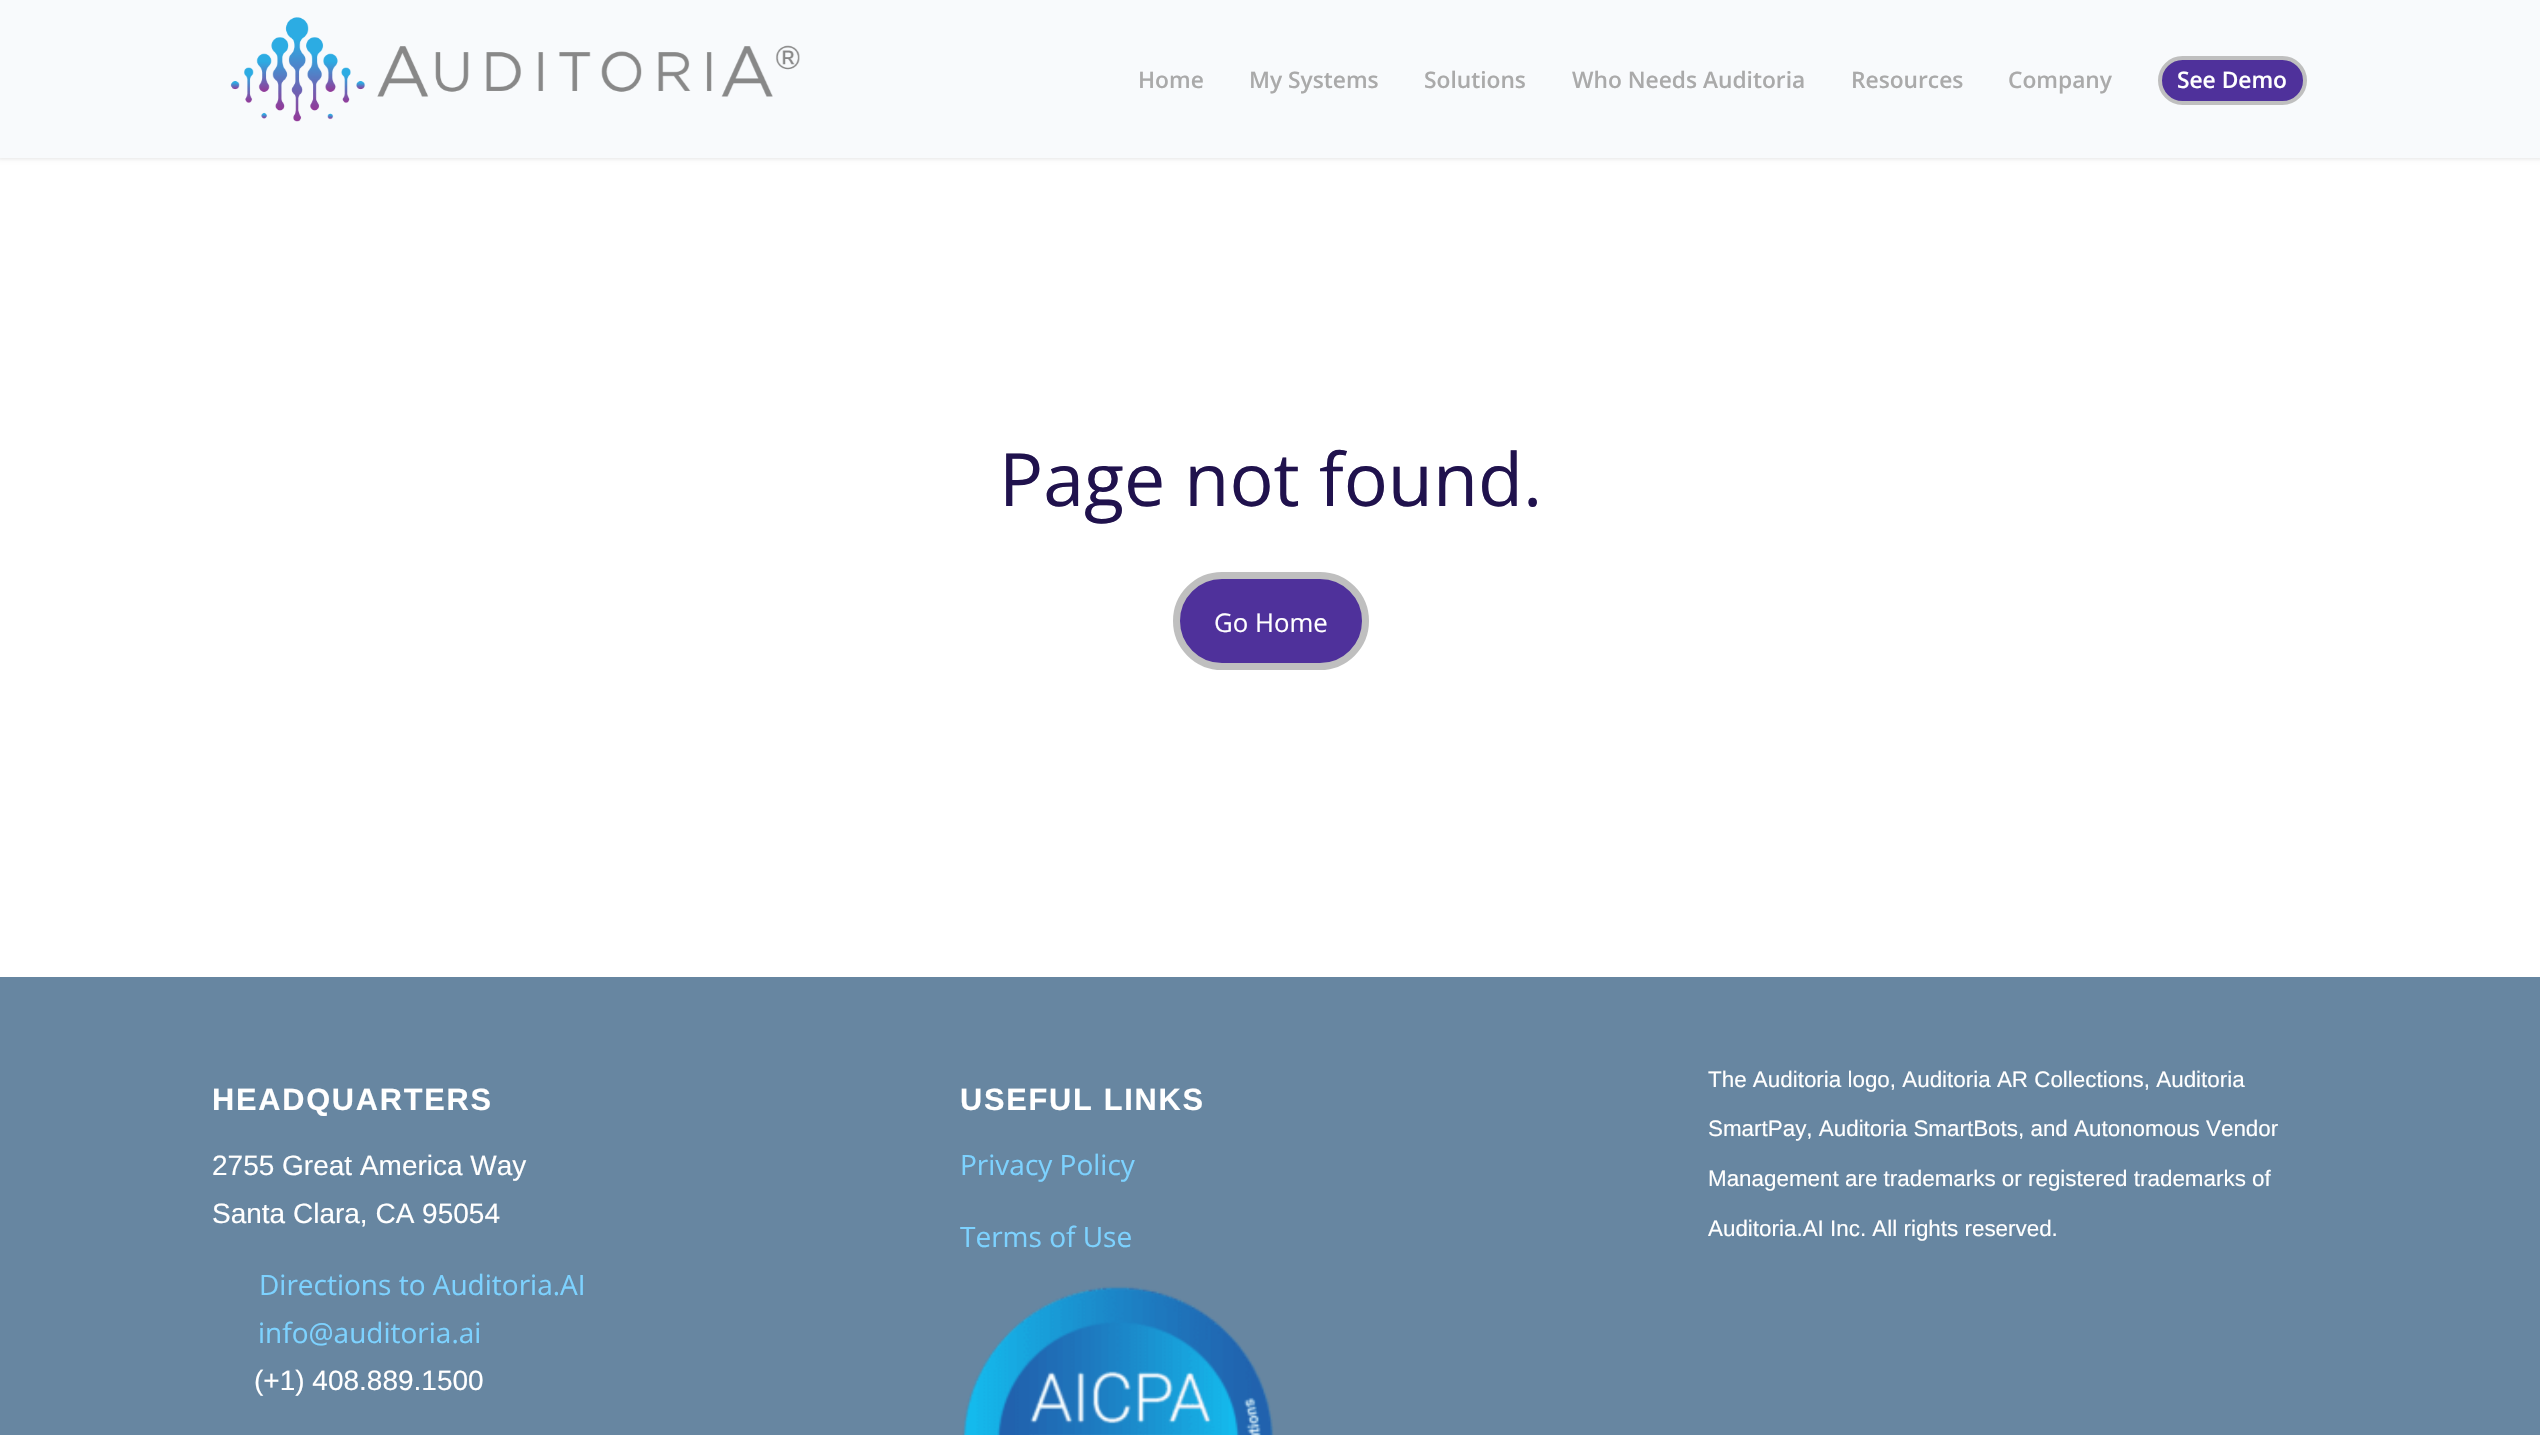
#include "include/core/SkBlurTypes.h"
#include "include/core/SkCanvas.h"
#include "include/core/SkData.h"
#include "include/core/SkFont.h"
#include "include/core/SkFontMgr.h"
#include "include/core/SkImage.h"
#include "include/core/SkMaskFilter.h"
#include "include/core/SkPaint.h"
#include "include/core/SkPathBuilder.h"
#include "include/core/SkTextBlob.h"
#include "include/effects/SkDashPathEffect.h"
#include "include/effects/SkGradientShader.h"
#include "include/utils/SkParsePath.h"

extern sk_sp<SkFontMgr> fontMgr;

void draw(SkCanvas* canvas) {
    SkPaint p;
    p.setAntiAlias(true);
    auto font = [&](const char* family, int weight, float size, bool italic = false) {
        SkFontStyle style(weight, SkFontStyle::kNormal_Width,
            italic ? SkFontStyle::kItalic_Slant : SkFontStyle::kUpright_Slant);
        SkFont result(fontMgr->matchFamilyStyle(family, style), size);
        result.setSubpixel(true);
        return result;
    };
    auto drawTracked = [&](const char* s, float x, float y, const SkFont& font, const SkPaint& ink, float letter, float word) {
        std::vector<SkGlyphID> glyphs(font.countText(s, strlen(s), SkTextEncoding::kUTF8));
        std::vector<float> xs(glyphs.size());
        font.textToGlyphs(s, strlen(s), SkTextEncoding::kUTF8, glyphs);
        font.getXPos(glyphs, xs, x);
        float extra = 0;
        for (size_t i = 0; i < glyphs.size(); i++) {
            xs[i] += extra;
            extra += letter + word * (glyphs[i] == font.unicharToGlyph(' '));
        }
        canvas->drawTextBlob(SkTextBlob::MakeFromPosHGlyphs(glyphs, xs, y, font), 0, 0, ink);
    };
    auto drawPhoto = [&](const char* path, float l, float t, float r, float b) {
        auto image = SkImages::DeferredFromEncodedData(SkData::MakeFromFileName(path));
        canvas->drawImageRect(image, SkRect::MakeLTRB(l, t, r, b), SkSamplingOptions());
    };
    canvas->clear(0xFFFFFFFF);
    p.setColor(0x1A000000);
    p.setMaskFilter(SkMaskFilter::MakeBlur(kNormal_SkBlurStyle, 2));
    canvas->drawRect(SkRect::MakeLTRB(-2, -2, 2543, 159), p);
    p.setMaskFilter(nullptr);
    p.setColor(0xFFF8FAFC);
    canvas->drawRect(SkRect::MakeLTRB(0, 0, 2540, 158), p);
    drawPhoto("media/1.png", 230, 17, 800, 122);
    auto font1 = font("Open Sans", 600, 22.75f);
    p.setColor(0xFFAAAAAA);
    {
        const struct { const char* s; float x, y; } items[] = {
            {"Home", 1138, 88},
            {"My Systems", 1249, 88},
            {"Solutions", 1424, 88},
            {"Who Needs Auditoria", 1572, 88},
            {"Resources", 1851, 88},
            {"Company", 2008, 88},
        };
        for (auto [s, x, y] : items) {
            canvas->drawString(s, x, y, font1, p);
        }
    }
    p.setColor(0xFF4F319B);
    canvas->drawRoundRect(SkRect::MakeLTRB(2160, 58, 2305, 103), 22.5f, 22.5f, p);
    p.setStyle(SkPaint::kStroke_Style);
    p.setStrokeWidth(4);
    p.setColor(0xFFBFBFBF);
    canvas->drawRoundRect(SkRect::MakeLTRB(2160, 58, 2305, 103), 22.5f, 22.5f, p);
    p.setStyle(SkPaint::kFill_Style);
    p.setColor(0xFFFFFFFF);
    canvas->drawString("See Demo", 2177, 88, font1, p);
    auto font2 = font("Open Sans", 400, 73.5f);
    p.setColor(0xFF20124D);
    canvas->drawString("Page not found.", 999, 506, font2, p);
    p.setColor(0xFF4F319B);
    canvas->drawRoundRect(SkRect::MakeLTRB(1176.5f, 575.5f, 1365.5f, 666.5f), 45.5f, 45.5f, p);
    p.setStyle(SkPaint::kStroke_Style);
    p.setStrokeWidth(7);
    p.setColor(0xFFBFBFBF);
    canvas->drawRoundRect(SkRect::MakeLTRB(1176.5f, 575.5f, 1365.5f, 666.5f), 45.5f, 45.5f, p);
    auto font3 = font("Open Sans", 400, 25.75f);
    p.setStyle(SkPaint::kFill_Style);
    p.setColor(0xFFFFFFFF);
    canvas->drawString("Go Home", 1214, 632, font3, p);
    p.setColor(0xFF6786A1);
    canvas->drawRect(SkRect::MakeLTRB(0, 977, 2540, 1435), p);
    auto font4 = font("Liberation Sans", 700, 30.75f);
    p.setColor(0xFFFFFFFF);
    drawTracked("HEADQUARTERS", 212, 1110, font4, p, 1.75f, 0);
    auto font5 = font("Liberation Sans", 400, 28);
    canvas->drawString("2755 Great America Way", 212, 1175, font5, p);
    canvas->drawString("Santa Clara, CA 95054", 212, 1223, font5, p);
    auto font6 = font("Open Sans", 400, 28);
    p.setColor(0xFF7DD2FF);
    canvas->drawString("Directions to Auditoria.AI", 259, 1295, font6, p);
    canvas->drawString("info@auditoria.ai", 258, 1343, font6, p);
    p.setColor(0xFFFFFFFF);
    canvas->drawString("(+1) 408.889.1500", 254, 1390, font5, p);
    drawTracked("USEFUL LINKS", 960, 1110, font4, p, 1.75f, 0);
    p.setColor(0xFF7DD2FF);
    canvas->drawString("Privacy Policy", 960, 1175, font6, p);
    canvas->drawString("Terms of Use", 960, 1247, font6, p);
    drawPhoto("media/2.png", 962, 1286, 1274, 1435);
    auto font7 = font("Liberation Sans", 400, 22.4f);
    p.setColor(0xFFFFFFFF);
    {
        const struct { const char* s; float x, y; } items[] = {
            {"The Auditoria logo, Auditoria AR Collections, Auditoria", 1708, 1087},
            {"SmartPay, Auditoria SmartBots, and Autonomous Vendor", 1708, 1136},
            {"Management are trademarks or registered trademarks of", 1708, 1186},
            {"Auditoria.AI Inc. All rights reserved.", 1708, 1236},
        };
        for (auto [s, x, y] : items) {
            canvas->drawString(s, x, y, font7, p);
        }
    }
}
